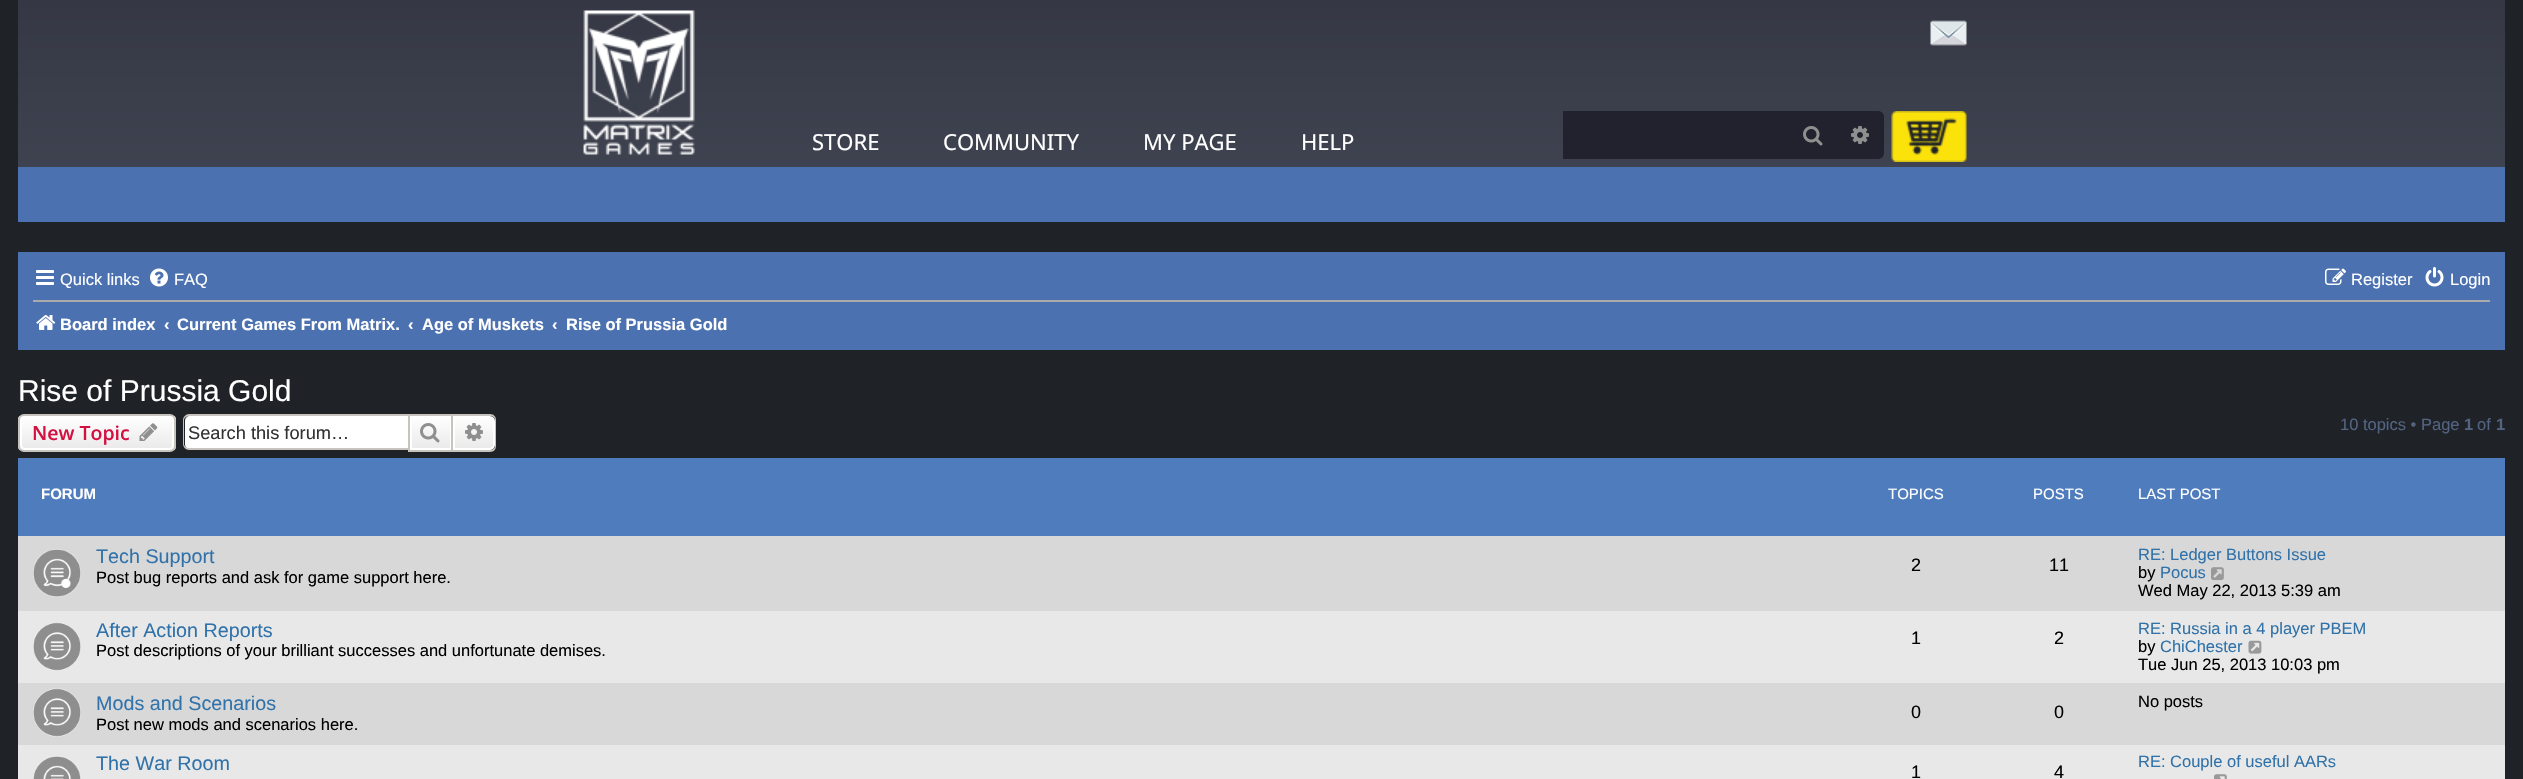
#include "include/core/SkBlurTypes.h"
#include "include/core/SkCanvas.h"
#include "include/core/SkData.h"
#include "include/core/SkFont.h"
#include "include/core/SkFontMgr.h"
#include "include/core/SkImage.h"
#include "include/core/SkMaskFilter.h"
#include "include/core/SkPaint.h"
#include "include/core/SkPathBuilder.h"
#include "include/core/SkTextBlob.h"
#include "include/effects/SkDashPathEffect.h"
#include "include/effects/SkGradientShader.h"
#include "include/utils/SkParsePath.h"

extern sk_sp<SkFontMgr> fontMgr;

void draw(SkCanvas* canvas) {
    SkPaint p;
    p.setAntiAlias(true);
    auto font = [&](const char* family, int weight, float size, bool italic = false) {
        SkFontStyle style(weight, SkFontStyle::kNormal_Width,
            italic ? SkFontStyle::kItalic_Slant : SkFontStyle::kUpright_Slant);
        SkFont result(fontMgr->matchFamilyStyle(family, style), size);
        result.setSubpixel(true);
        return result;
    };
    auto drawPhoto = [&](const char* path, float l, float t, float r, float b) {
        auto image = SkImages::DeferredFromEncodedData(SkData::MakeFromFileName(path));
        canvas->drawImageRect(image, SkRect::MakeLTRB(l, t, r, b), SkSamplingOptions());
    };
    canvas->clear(0xFF1F2227);
    {
        const SkColor colors[] = {0xFF353844, 0xFF424654};
        const float stops[] = {0, 1};
        const SkPoint ends[] = {{1262, 0}, {1262, 222}};
        p.setShader(SkGradientShader::MakeLinear(ends, colors, stops, 2, SkTileMode::kClamp));
        p.setAlpha(255);
    }
    canvas->drawRect(SkRect::MakeLTRB(18, 0, 2505, 167), p);
    drawPhoto("media/1.png", 583, 10, 695, 155);
    drawPhoto("media/2.png", 1930, 20, 1967, 46);
    auto font1 = font("Noto Sans", 400, 22);
    p.setShader(nullptr);
    p.setColor(0xFFFFFFFF);
    {
        const struct { const char* s; float x, y; } items[] = {
            {"STORE", 812, 150},
            {"COMMUNITY", 943, 150},
            {"MY PAGE", 1143, 150},
            {"HELP", 1301, 150},
        };
        for (auto [s, x, y] : items) {
            canvas->drawString(s, x, y, font1, p);
        }
    }
    p.setColor(0xFF22222E);
    canvas->drawRect(SkRect::MakeLTRB(1563, 111, 1836, 159), p);
    canvas->drawPath(SkPathBuilder().moveTo(1836, 111).lineTo(1878, 111).cubicTo(1881.5f, 111, 1884, 113.5f, 1884, 117).lineTo(1884, 153).cubicTo(1884, 156.5f, 1881.5f, 159, 1878, 159).lineTo(1836, 159).close().detach(), p);
    drawPhoto("media/3.png", 1851, 126, 1869, 144);
    drawPhoto("media/4.png", 1803, 126, 1823, 146);
    drawPhoto("media/5.png", 1891, 111, 1967, 162);
    p.setColor(0xFF4B71B0);
    canvas->drawRect(SkRect::MakeLTRB(18, 167, 2505, 222), p);
    canvas->drawRect(SkRect::MakeLTRB(18, 252, 2505, 350), p);
    drawPhoto("media/6.png", 36, 270, 54, 285);
    auto font2 = font("Liberation Sans", 400, 16.5f);
    p.setColor(0xFFFFFFFF);
    canvas->drawString("Quick links", 60, 285, font2, p);
    drawPhoto("media/7.png", 150, 268, 168, 287);
    canvas->drawString("FAQ", 174, 285, font2, p);
    drawPhoto("media/8.png", 2325, 268, 2346, 285);
    canvas->drawString("Register", 2351, 285, font2, p);
    drawPhoto("media/9.png", 2425, 267, 2444, 287);
    canvas->drawString("Login", 2450, 285, font2, p);
    p.setColor(0xFFAAAAAA);
    canvas->drawRect(SkRect::MakeLTRB(33, 300, 2490, 302), p);
    drawPhoto("media/10.png", 36, 315, 56, 330);
    auto font3 = font("Liberation Sans", 700, 16.5f);
    p.setColor(0xFFFFFFFF);
    {
        const struct { const char* s; float x, y; } items[] = {
            {"Board index", 60, 330},
            {"‹", 164, 330},
            {"Current Games From Matrix.", 177, 330},
            {"‹", 408, 330},
            {"Age of Muskets", 422, 330},
            {"‹", 552, 330},
            {"Rise of Prussia Gold", 566, 330},
        };
        for (auto [s, x, y] : items) {
            canvas->drawString(s, x, y, font3, p);
        }
    }
    auto font4 = font("Liberation Sans", 400, 30);
    canvas->drawString("Rise of Prussia Gold", 18, 401, font4, p);
    canvas->save();
    canvas->clipPath(SkPathBuilder().moveTo(24, 414).lineTo(170, 414).cubicTo(173.5f, 414, 176, 416.5f, 176, 420).lineTo(176, 446).cubicTo(176, 449.5f, 173.5f, 452, 170, 452).lineTo(24, 452).cubicTo(20.5f, 452, 18, 449.5f, 18, 446).lineTo(18, 420).cubicTo(18, 416.5f, 20.5f, 414, 24, 414).close().detach(), true);
    {
        const SkColor colors[] = {0xFFFFFFFF, 0xFFE9E9E9};
        const float stops[] = {0, 1};
        const SkPoint ends[] = {{97, 416}, {97, 450}};
        p.setShader(SkGradientShader::MakeLinear(ends, colors, stops, 2, SkTileMode::kClamp));
        p.setAlpha(255);
    }
    canvas->drawRect(SkRect::MakeLTRB(18, 416, 176, 450), p);
    canvas->restore();
    p.setStyle(SkPaint::kStroke_Style);
    p.setStrokeWidth(2);
    p.setShader(nullptr);
    p.setColor(0xFFFFFFFF);
    canvas->drawRoundRect(SkRect::MakeLTRB(21, 417, 173, 449), 4, 4, p);
    p.setColor(0xFFC7C3BF);
    canvas->drawRoundRect(SkRect::MakeLTRB(19, 415, 175, 451), 5, 5, p);
    auto font5 = font("Open Sans", 600, 19.5f);
    p.setStyle(SkPaint::kFill_Style);
    p.setColor(0xFFD31141);
    canvas->drawString("New Topic", 32, 440, font5, p);
    drawPhoto("media/11.png", 139, 423, 158, 441);
    p.setColor(0xFFFFFFFF);
    canvas->drawPath(SkPathBuilder().moveTo(190, 416).lineTo(408, 416).lineTo(408, 449).lineTo(190, 449).cubicTo(187, 449, 185, 447, 185, 444).lineTo(185, 421).cubicTo(185, 418, 187, 416, 190, 416).close().detach(), p);
    p.setColor(0xFFC7C3BF);
    canvas->drawPath(SkPathBuilder(SkPathFillType::kEvenOdd).moveTo(189, 414).lineTo(408, 414).lineTo(408, 450).lineTo(189, 450).cubicTo(186, 450, 183, 447, 183, 444).lineTo(183, 420).cubicTo(183, 417, 186, 414, 189, 414).close().moveTo(189, 416).lineTo(408, 416).lineTo(408, 448).lineTo(189, 448).cubicTo(187, 448, 184, 446, 184, 444).lineTo(184, 420).cubicTo(184, 418, 187, 416, 189, 416).close().detach(), p);
    auto font6 = font("Liberation Sans", 400, 18.25f);
    p.setColor(0xFF333333);
    canvas->drawString("Search this forum…", 188, 439, font6, p);
    {
        const SkColor colors[] = {0xFFFFFFFF, 0xFFE9E9E9};
        const float stops[] = {0, 1};
        const SkPoint ends[] = {{431, 416}, {431, 450}};
        p.setShader(SkGradientShader::MakeLinear(ends, colors, stops, 2, SkTileMode::kClamp));
        p.setAlpha(255);
    }
    canvas->drawRect(SkRect::MakeLTRB(412, 418, 450, 448), p);
    p.setStyle(SkPaint::kStroke_Style);
    p.setShader(nullptr);
    p.setColor(0xFFFFFFFF);
    canvas->drawRect(SkRect::MakeLTRB(411, 417, 451, 449), p);
    p.setColor(0xFFC7C3BF);
    canvas->drawRect(SkRect::MakeLTRB(409, 415, 452, 451), p);
    drawPhoto("media/12.png", 420, 423, 440, 443);
    p.setStyle(SkPaint::kFill_Style);
    {
        const SkColor colors[] = {0xFFFFFFFF, 0xFFE9E9E9};
        const float stops[] = {0, 1};
        const SkPoint ends[] = {{474, 416}, {474, 450}};
        p.setShader(SkGradientShader::MakeLinear(ends, colors, stops, 2, SkTileMode::kClamp));
        p.setAlpha(255);
    }
    canvas->drawPath(SkPathBuilder().moveTo(454, 417).lineTo(490, 417).cubicTo(492, 417, 494, 419, 494, 421).lineTo(494, 445).cubicTo(494, 447, 492, 449, 490, 449).lineTo(454, 449).close().detach(), p);
    p.setStyle(SkPaint::kStroke_Style);
    p.setShader(nullptr);
    p.setColor(0xFFFFFFFF);
    canvas->drawPath(SkPathBuilder().moveTo(454, 417).lineTo(490, 417).cubicTo(492, 417, 494, 419, 494, 421).lineTo(494, 445).cubicTo(494, 447, 492, 449, 490, 449).lineTo(454, 449).close().detach(), p);
    p.setStyle(SkPaint::kFill_Style);
    p.setColor(0xFFC7C3BF);
    canvas->drawPath(SkPathBuilder(SkPathFillType::kEvenOdd).moveTo(453, 414).lineTo(490, 414).cubicTo(494, 414, 496, 417, 496, 420).lineTo(496, 446).cubicTo(496, 449, 494, 452, 490, 452).lineTo(453, 452).close().moveTo(453, 416).lineTo(490, 416).cubicTo(493, 416, 495, 418, 495, 420).lineTo(495, 446).cubicTo(495, 448, 493, 450, 490, 450).lineTo(453, 450).close().detach(), p);
    drawPhoto("media/13.png", 465, 423, 483, 441);
    p.setColor(0xFF536482);
    canvas->drawString("10 topics • Page", 2340, 430, font2, p);
    canvas->drawString("1", 2464, 430, font3, p);
    canvas->drawString("of", 2477, 430, font2, p);
    canvas->drawString("1", 2496, 430, font3, p);
    p.setColor(0xFF4E7CBC);
    canvas->drawRect(SkRect::MakeLTRB(18, 458, 2505, 536), p);
    auto font7 = font("Liberation Sans", 700, 15);
    p.setColor(0xFFFFFFFF);
    canvas->drawString("FORUM", 41, 499, font7, p);
    auto font8 = font("Liberation Sans", 400, 15);
    {
        const struct { const char* s; float x, y; } items[] = {
            {"TOPICS", 1888, 499},
            {"POSTS", 2033, 499},
            {"LAST POST", 2138, 499},
        };
        for (auto [s, x, y] : items) {
            canvas->drawString(s, x, y, font8, p);
        }
    }
    p.setColor(0xFFD8D8D8);
    canvas->drawRect(SkRect::MakeLTRB(18, 536, 2505, 611), p);
    drawPhoto("media/14.png", 33, 549, 81, 597);
    auto font9 = font("Liberation Sans", 400, 19.75f);
    p.setColor(0xFF3072A9);
    canvas->drawString("Tech Support", 96, 563, font9, p);
    p.setColor(0xFF000000);
    canvas->drawString("Post bug reports and ask for game support here.", 96, 583, font2, p);
    auto font10 = font("Liberation Sans", 400, 18);
    canvas->drawString("2", 1911, 571, font10, p);
    canvas->drawString("11", 2049, 571, font10, p);
    p.setColor(0xFF3072A9);
    canvas->drawString("RE: Ledger Buttons Issue", 2138, 560, font2, p);
    p.setColor(0xFF000000);
    canvas->drawString("by", 2138, 578, font2, p);
    p.setColor(0xFF3072A9);
    canvas->drawString("Pocus", 2160, 578, font2, p);
    drawPhoto("media/15.png", 2211, 567, 2224, 581);
    p.setColor(0xFF000000);
    canvas->drawString("Wed May 22, 2013 5:39 am", 2138, 596, font2, p);
    p.setColor(0xFFE8E8E8);
    canvas->drawRect(SkRect::MakeLTRB(18, 611, 2505, 683), p);
    drawPhoto("media/16.png", 33, 622, 81, 671);
    p.setColor(0xFF3072A9);
    canvas->drawString("After Action Reports", 96, 637, font9, p);
    p.setColor(0xFF000000);
    canvas->drawString("Post descriptions of your brilliant successes and unfortunate demises.", 96, 656, font2, p);
    canvas->drawString("1", 1911, 644, font10, p);
    canvas->drawString("2", 2054, 644, font10, p);
    p.setColor(0xFF3072A9);
    canvas->drawString("RE: Russia in a 4 player PBEM", 2138, 634, font2, p);
    p.setColor(0xFF000000);
    canvas->drawString("by", 2138, 652, font2, p);
    p.setColor(0xFF3072A9);
    canvas->drawString("ChiChester", 2160, 652, font2, p);
    drawPhoto("media/17.png", 2248, 640, 2262, 654);
    p.setColor(0xFF000000);
    canvas->drawString("Tue Jun 25, 2013 10:03 pm", 2138, 670, font2, p);
    p.setColor(0xFFD8D8D8);
    canvas->drawRect(SkRect::MakeLTRB(18, 683, 2505, 745), p);
    drawPhoto("media/18.png", 33, 688, 81, 737);
    p.setColor(0xFF3072A9);
    canvas->drawString("Mods and Scenarios", 96, 710, font9, p);
    p.setColor(0xFF000000);
    canvas->drawString("Post new mods and scenarios here.", 96, 730, font2, p);
    canvas->drawString("0", 1911, 718, font10, p);
    canvas->drawString("0", 2054, 718, font10, p);
    canvas->drawString("No posts", 2138, 707, font2, p);
    p.setColor(0xFFE8E8E8);
    canvas->drawRect(SkRect::MakeLTRB(18, 745, 2505, 779), p);
    drawPhoto("media/19.png", 33, 756, 81, 779);
    p.setColor(0xFF3072A9);
    canvas->drawString("The War Room", 96, 770, font9, p);
    p.setColor(0xFF000000);
    canvas->drawString("1", 1911, 778, font10, p);
    canvas->drawString("4", 2054, 778, font10, p);
    p.setColor(0xFF3072A9);
    canvas->drawString("RE: Couple of useful AARs", 2138, 767, font2, p);
    drawPhoto("media/20.png", 2214, 774, 2227, 779);
}
